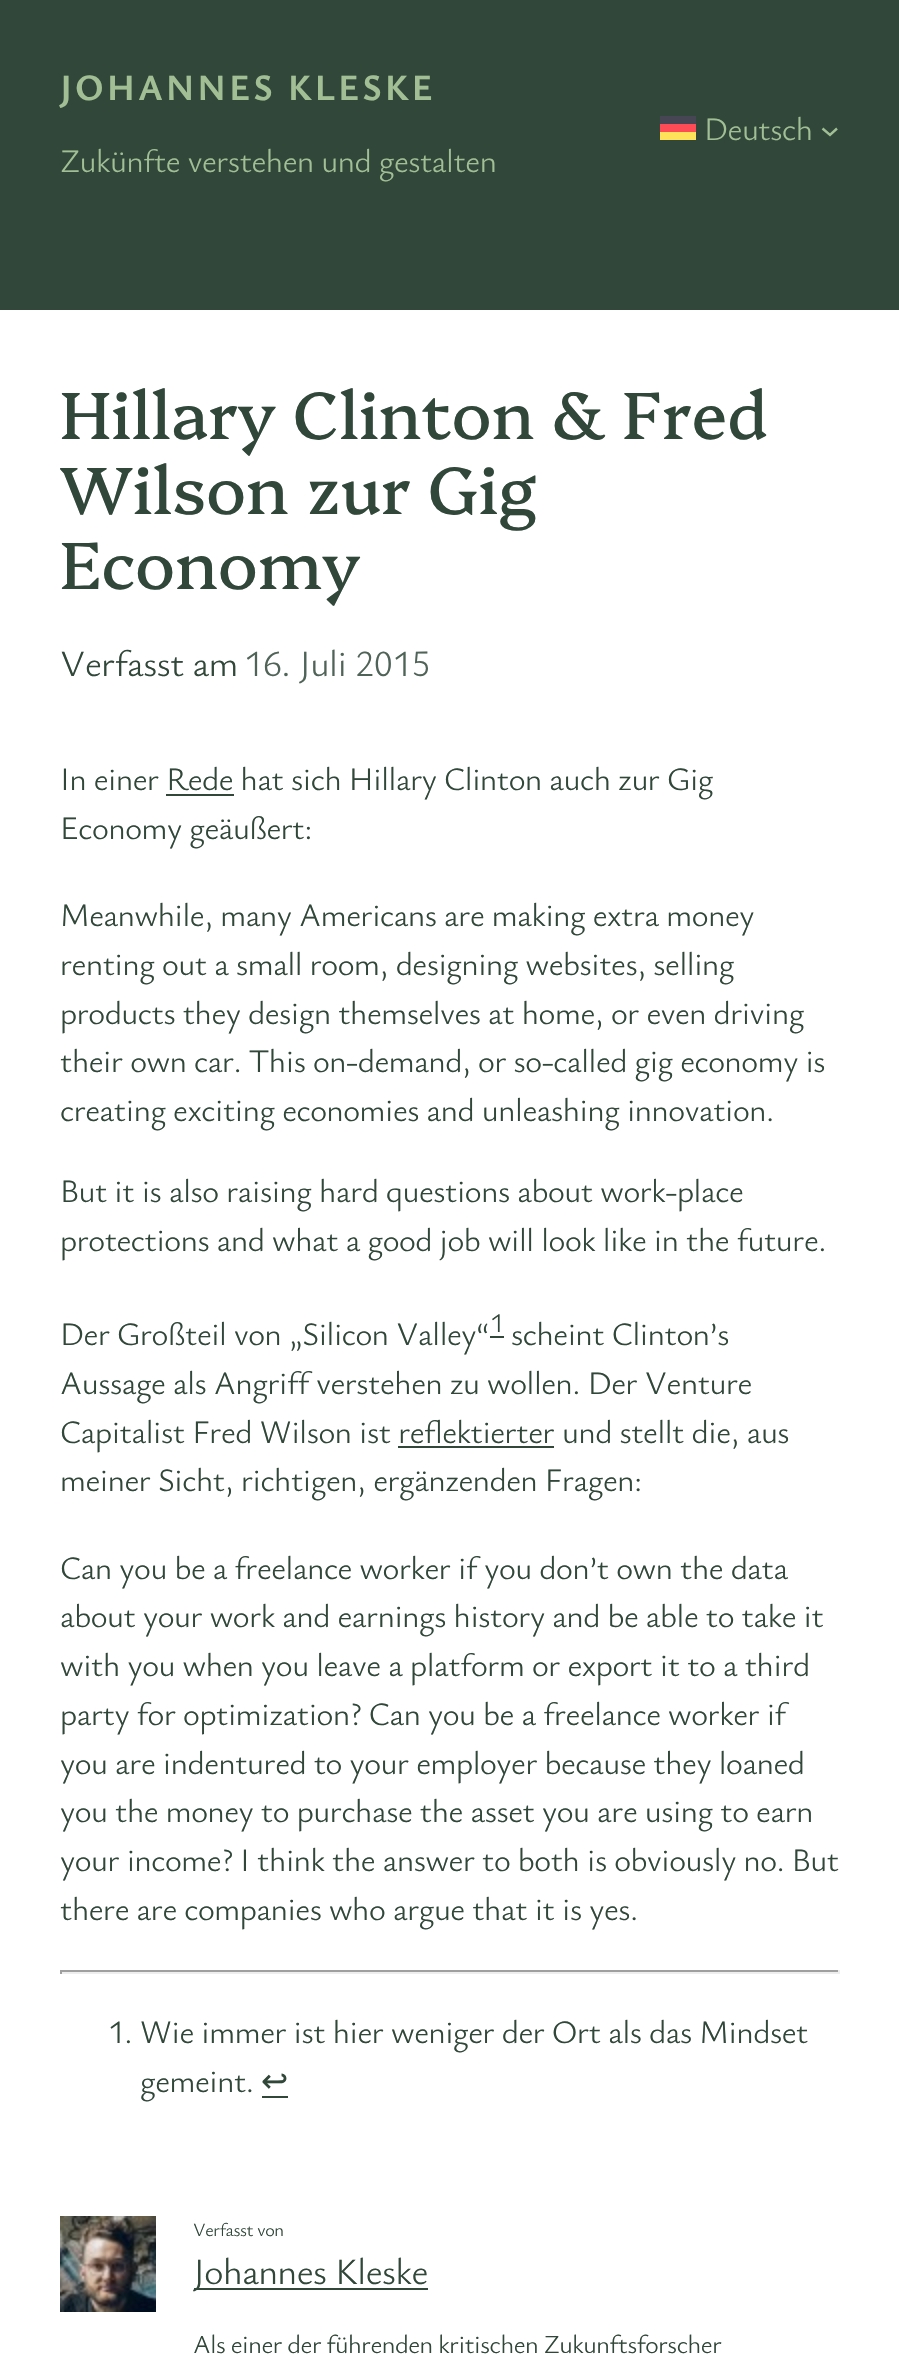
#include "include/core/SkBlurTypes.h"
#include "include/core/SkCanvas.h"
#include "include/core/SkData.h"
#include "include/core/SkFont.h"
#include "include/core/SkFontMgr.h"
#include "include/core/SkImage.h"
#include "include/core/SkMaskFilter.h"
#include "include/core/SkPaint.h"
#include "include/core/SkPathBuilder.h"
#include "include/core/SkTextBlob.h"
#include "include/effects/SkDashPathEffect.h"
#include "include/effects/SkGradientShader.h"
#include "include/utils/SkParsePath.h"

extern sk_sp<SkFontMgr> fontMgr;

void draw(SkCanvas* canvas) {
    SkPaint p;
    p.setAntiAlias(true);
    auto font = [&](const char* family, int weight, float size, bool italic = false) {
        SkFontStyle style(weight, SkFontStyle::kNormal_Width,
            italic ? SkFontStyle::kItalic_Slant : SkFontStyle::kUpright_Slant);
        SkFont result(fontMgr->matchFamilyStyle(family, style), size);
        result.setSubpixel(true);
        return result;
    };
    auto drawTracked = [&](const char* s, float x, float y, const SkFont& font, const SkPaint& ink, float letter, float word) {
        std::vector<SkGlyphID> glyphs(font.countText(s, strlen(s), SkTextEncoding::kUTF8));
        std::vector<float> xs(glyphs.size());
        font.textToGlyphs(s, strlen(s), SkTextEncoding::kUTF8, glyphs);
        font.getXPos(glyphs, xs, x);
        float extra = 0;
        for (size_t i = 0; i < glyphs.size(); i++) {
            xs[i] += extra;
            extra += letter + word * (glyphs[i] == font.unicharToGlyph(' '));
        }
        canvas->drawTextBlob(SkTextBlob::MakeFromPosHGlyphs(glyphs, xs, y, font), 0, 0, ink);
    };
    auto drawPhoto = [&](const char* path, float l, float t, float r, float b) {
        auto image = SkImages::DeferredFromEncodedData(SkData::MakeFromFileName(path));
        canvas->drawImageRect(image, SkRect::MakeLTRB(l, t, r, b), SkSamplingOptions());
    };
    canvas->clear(0xFF31473A);
    auto font1 = font("Ysabeau Office", 700, 37);
    p.setColor(0xFFA1BE95);
    drawTracked("JOHANNES KLESKE", 60, 100, font1, p, 2.9f, 0);
    auto font2 = font("Ysabeau Office", 300, 32.5f);
    drawTracked("Zukünfte verstehen und gestalten", 60, 172, font2, p, -0.45f, 0);
    {
        const struct { float l, t, r, b; SkColor color; } items[] = {
            {660, 124, 696, 132, 0xFFFF4B55},
            {660, 132, 696, 140, 0xFFFFE15A},
            {660, 116, 696, 124, 0xFF464655},
        };
        for (auto [l, t, r, b, color] : items) {
            p.setColor(color);
            canvas->drawRect(SkRect::MakeLTRB(l, t, r, b), p);
        }
    }
    p.setColor(0xFFA1BE95);
    drawTracked("Deutsch", 704, 140, font2, p, -0.45f, 0);
    p.setStyle(SkPaint::kStroke_Style);
    p.setStrokeWidth(2.4f);
    canvas->drawPath(SkPathBuilder().moveTo(822.5f, 128.5f).lineTo(830, 135).lineTo(837, 128.5f).detach(), p);
    p.setStyle(SkPaint::kFill_Style);
    p.setColor(0xFFFFFFFF);
    canvas->drawRect(SkRect::MakeLTRB(0, 310, 899, 2356), p);
    auto font3 = font("Platypi", 400, 66.5f);
    p.setColor(0xFF31473A);
    {
        const struct { const char* s; float x, y; } items[] = {
            {"Hillary Clinton & Fred", 60, 439},
            {"Wilson zur Gig", 60, 514},
            {"Economy", 60, 589},
        };
        for (auto [s, x, y] : items) {
            drawTracked(s, x, y, font3, p, -0.2f, 0);
        }
    }
    auto font4 = font("Ysabeau Office", 300, 37);
    drawTracked("Verfasst am", 60, 676, font4, p, -0.45f, 0);
    p.setColor(0xFF506358);
    drawTracked("16. Juli 2015", 244, 676, font4, p, -0.45f, 0);
    p.setColor(0xFF31473A);
    drawTracked("In einer Rede hat sich Hillary Clinton auch zur Gig", 60, 790, font2, p, -0.45f, 0);
    canvas->drawRect(SkRect::MakeLTRB(166, 794, 234, 796), p);
    {
        const struct { const char* s; float x, y; } items[] = {
            {"Economy geäußert:", 60, 839},
            {"Meanwhile, many Americans are making extra money", 60, 926},
            {"renting out a small room, designing websites, selling", 60, 975},
            {"products they design themselves at home, or even driving", 60, 1024},
            {"their own car. This on-demand, or so-called gig economy is", 60, 1072},
            {"creating exciting economies and unleashing innovation.", 60, 1121},
            {"But it is also raising hard questions about work-place", 60, 1202},
            {"protections and what a good job will look like in the future.", 60, 1251},
            {"Der Großteil von „Silicon Valley“", 60, 1345},
        };
        for (auto [s, x, y] : items) {
            drawTracked(s, x, y, font2, p, -0.45f, 0);
        }
    }
    auto font5 = font("Ysabeau Office", 300, 27);
    drawTracked("1", 490, 1332, font5, p, -0.45f, 0);
    canvas->drawRect(SkRect::MakeLTRB(490, 1336, 504, 1338), p);
    {
        const struct { const char* s; float x, y; } items[] = {
            {"scheint Clinton’s", 511, 1345},
            {"Aussage als Angriff verstehen zu wollen. Der Venture", 60, 1394},
            {"Capitalist Fred Wilson ist reflektierter", 60, 1443},
            {"und stellt die, aus", 562, 1443},
        };
        for (auto [s, x, y] : items) {
            drawTracked(s, x, y, font2, p, -0.45f, 0);
        }
    }
    canvas->drawRect(SkRect::MakeLTRB(398, 1446, 554, 1448), p);
    {
        const struct { const char* s; float x, y; } items[] = {
            {"meiner Sicht, richtigen, ergänzenden Fragen:", 60, 1491},
            {"Can you be a freelance worker if you don’t own the data", 60, 1579},
            {"about your work and earnings history and be able to take it", 60, 1627},
            {"with you when you leave a platform or export it to a third", 60, 1676},
            {"party for optimization? Can you be a freelance worker if", 60, 1725},
            {"you are indentured to your employer because they loaned", 60, 1774},
            {"you the money to purchase the asset you are using to earn", 60, 1822},
            {"your income? I think the answer to both is obviously no. But", 60, 1871},
            {"there are companies who argue that it is yes.", 60, 1920},
        };
        for (auto [s, x, y] : items) {
            drawTracked(s, x, y, font2, p, -0.45f, 0);
        }
    }
    {
        const struct { float l, t, r, b; SkColor color; } items[] = {
            {60, 1970, 840, 1972, 0xFF9F9F9F},
            {838, 1970, 840, 1974, 0xFFEEEEEE},
            {60, 1972, 840, 1974, 0xFFEEEEEE},
            {60, 1970, 62, 1974, 0xFF9F9F9F},
        };
        for (auto [l, t, r, b, color] : items) {
            p.setColor(color);
            canvas->drawRect(SkRect::MakeLTRB(l, t, r, b), p);
        }
    }
    p.setColor(0xFF31473A);
    drawTracked("1. Wie immer ist hier weniger der Ort als das Mindset", 108, 2043, font2, p, -0.45f, 0);
    drawTracked("gemeint.", 140, 2092, font2, p, -0.45f, 0);
    auto font6 = font("DejaVu Sans", 400, 32.5f);
    drawTracked("↩", 261, 2092, font6, p, -0.45f, 0);
    canvas->drawRect(SkRect::MakeLTRB(262, 2096, 288, 2098), p);
    drawPhoto("media/1.png", 60, 2216, 156, 2312);
    auto font7 = font("Ysabeau Office", 300, 18.5f);
    drawTracked("Verfasst von", 193, 2236, font7, p, -0.45f, 0);
    canvas->drawRect(SkRect::MakeLTRB(194, 2288, 428, 2290), p);
    drawTracked("Johannes Kleske", 193, 2284, font4, p, -0.45f, 0);
    auto font8 = font("Ysabeau Office", 300, 25.9f);
    drawTracked("Als einer der führenden kritischen Zukunftsforscher", 193, 2353, font8, p, -0.45f, -0.5f);
}
